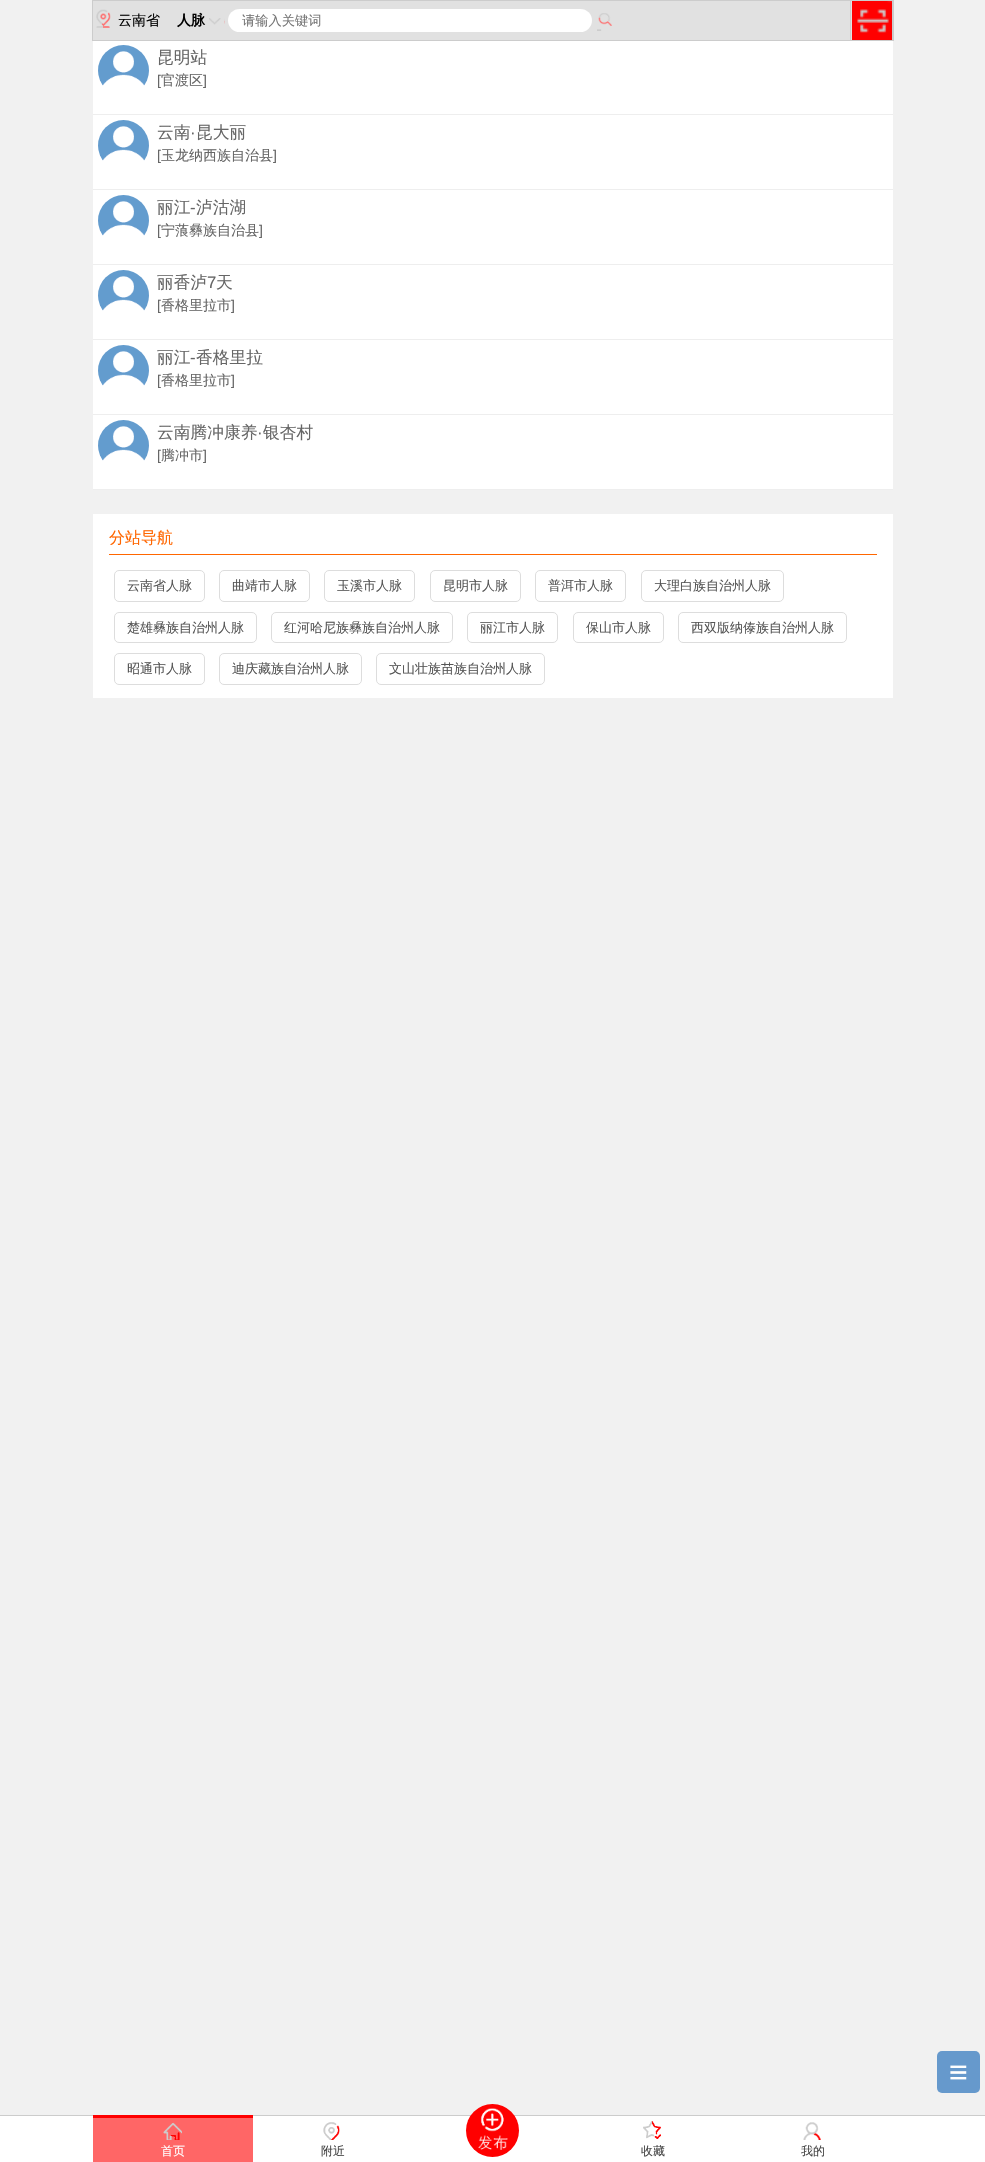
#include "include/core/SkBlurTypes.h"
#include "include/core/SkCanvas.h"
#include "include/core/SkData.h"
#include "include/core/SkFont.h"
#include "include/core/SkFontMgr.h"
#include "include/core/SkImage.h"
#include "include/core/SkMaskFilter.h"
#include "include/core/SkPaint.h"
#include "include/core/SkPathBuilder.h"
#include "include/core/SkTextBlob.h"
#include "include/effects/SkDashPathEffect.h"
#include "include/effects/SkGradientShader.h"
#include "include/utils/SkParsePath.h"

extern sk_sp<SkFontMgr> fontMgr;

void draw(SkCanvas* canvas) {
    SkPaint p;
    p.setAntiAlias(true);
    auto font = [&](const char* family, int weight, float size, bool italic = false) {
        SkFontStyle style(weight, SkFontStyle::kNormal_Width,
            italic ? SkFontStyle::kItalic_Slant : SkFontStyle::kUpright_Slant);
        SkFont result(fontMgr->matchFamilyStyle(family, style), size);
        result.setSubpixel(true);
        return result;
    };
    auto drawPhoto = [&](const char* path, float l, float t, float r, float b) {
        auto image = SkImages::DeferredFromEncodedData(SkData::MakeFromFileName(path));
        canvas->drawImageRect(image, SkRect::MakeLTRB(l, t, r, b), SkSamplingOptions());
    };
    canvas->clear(0xFFF1F1F1);
    p.setColor(0xFFE1E1E1);
    canvas->drawRect(SkRect::MakeLTRB(93, 1, 852, 40), p);
    p.setStyle(SkPaint::kStroke_Style);
    p.setStrokeWidth(1);
    p.setColor(0xFFCCCCCC);
    canvas->drawRect(SkRect::MakeLTRB(92.5f, 0.5f, 893.5f, 40.5f), p);
    drawPhoto("media/1.png", 96, 9, 111, 28);
    auto font1 = font("WenQuanYi Zen Hei", 500, 14);
    p.setStyle(SkPaint::kFill_Style);
    p.setColor(0xFF000000);
    canvas->drawString("云南省", 118, 25, font1, p);
    p.setColor(0xFFCCCCCC);
    canvas->drawRect(SkRect::MakeLTRB(850, 1, 851, 40), p);
    auto font2 = font("WenQuanYi Zen Hei", 700, 14);
    p.setColor(0xFF000000);
    canvas->drawString("人脉", 177, 25, font2, p);
    drawPhoto("media/2.png", 209, 18, 225, 25);
    p.setColor(0xFFFFFFFF);
    canvas->drawRoundRect(SkRect::MakeLTRB(228, 9, 592, 32), 11.5f, 11.5f, p);
    auto font3 = font("WenQuanYi Zen Hei", 500, 13.25f);
    p.setColor(0xFF757575);
    canvas->drawString("请输入关键词", 242, 25, font3, p);
    drawPhoto("media/3.png", 597, 13, 612, 31);
    p.setColor(0xFFFF0000);
    canvas->drawRect(SkRect::MakeLTRB(852, 1, 892, 40), p);
    drawPhoto("media/4.png", 857, 1, 892, 33);
    {
        const struct { float l, t, r, b; SkColor color; } items[] = {
            {892, 1, 893, 40, 0xFFCCCCCC},
            {93, 41, 893, 489, 0xFFFFFFFF},
            {93, 114, 893, 115, 0xFFEEEEEE},
        };
        for (auto [l, t, r, b, color] : items) {
            p.setColor(color);
            canvas->drawRect(SkRect::MakeLTRB(l, t, r, b), p);
        }
    }
    drawPhoto("media/5.png", 98, 45, 149, 86);
    auto font4 = font("WenQuanYi Zen Hei", 500, 16.75f);
    p.setColor(0xFF666666);
    canvas->drawString("昆明站", 157, 63, font4, p);
    auto font5 = font("Liberation Sans", 400, 14);
    canvas->drawString("[", 157, 85, font5, p);
    canvas->drawString("官渡区", 161, 85, font1, p);
    canvas->drawString("]", 203, 85, font5, p);
    p.setColor(0xFFEEEEEE);
    canvas->drawRect(SkRect::MakeLTRB(93, 189, 893, 190), p);
    drawPhoto("media/6.png", 98, 120, 149, 161);
    p.setColor(0xFF666666);
    canvas->drawString("云南", 157, 138, font4, p);
    auto font6 = font("Liberation Sans", 400, 16.75f);
    canvas->drawString("·", 190, 138, font6, p);
    canvas->drawString("昆大丽", 196, 138, font4, p);
    canvas->drawString("[", 157, 160, font5, p);
    canvas->drawString("玉龙纳西族自治县", 161, 160, font1, p);
    canvas->drawString("]", 273, 160, font5, p);
    p.setColor(0xFFEEEEEE);
    canvas->drawRect(SkRect::MakeLTRB(93, 264, 893, 265), p);
    drawPhoto("media/6.png", 98, 195, 149, 236);
    p.setColor(0xFF666666);
    canvas->drawString("丽江", 157, 213, font4, p);
    canvas->drawString("-", 190, 213, font6, p);
    canvas->drawString("泸沽湖", 196, 213, font4, p);
    canvas->drawString("[", 157, 235, font5, p);
    canvas->drawString("宁蒗彝族自治县", 161, 235, font1, p);
    canvas->drawString("]", 259, 235, font5, p);
    p.setColor(0xFFEEEEEE);
    canvas->drawRect(SkRect::MakeLTRB(93, 339, 893, 340), p);
    drawPhoto("media/6.png", 98, 270, 149, 311);
    p.setColor(0xFF666666);
    canvas->drawString("丽香泸", 157, 288, font4, p);
    canvas->drawString("7", 207, 288, font6, p);
    canvas->drawString("天", 216, 288, font4, p);
    canvas->drawString("[", 157, 310, font5, p);
    canvas->drawString("香格里拉市", 161, 310, font1, p);
    canvas->drawString("]", 231, 310, font5, p);
    p.setColor(0xFFEEEEEE);
    canvas->drawRect(SkRect::MakeLTRB(93, 414, 893, 415), p);
    drawPhoto("media/6.png", 98, 345, 149, 386);
    p.setColor(0xFF666666);
    canvas->drawString("丽江", 157, 363, font4, p);
    canvas->drawString("-", 190, 363, font6, p);
    canvas->drawString("香格里拉", 196, 363, font4, p);
    canvas->drawString("[", 157, 385, font5, p);
    canvas->drawString("香格里拉市", 161, 385, font1, p);
    canvas->drawString("]", 231, 385, font5, p);
    p.setColor(0xFFEEEEEE);
    canvas->drawRect(SkRect::MakeLTRB(93, 489, 893, 490), p);
    drawPhoto("media/7.png", 98, 420, 149, 461);
    p.setColor(0xFF666666);
    canvas->drawString("云南腾冲康养", 157, 438, font4, p);
    canvas->drawString("·", 257, 438, font6, p);
    canvas->drawString("银杏村", 263, 438, font4, p);
    canvas->drawString("[", 157, 460, font5, p);
    canvas->drawString("腾冲市", 161, 460, font1, p);
    canvas->drawString("]", 203, 460, font5, p);
    p.setColor(0xFFFFFFFF);
    canvas->drawRect(SkRect::MakeLTRB(93, 514, 893, 698), p);
    p.setColor(0xFFFF6600);
    canvas->drawRect(SkRect::MakeLTRB(109, 554, 877, 555), p);
    auto font7 = font("WenQuanYi Zen Hei", 500, 16);
    canvas->drawString("分站导航", 109, 543, font7, p);
    p.setStyle(SkPaint::kStroke_Style);
    p.setColor(0xFFDDDDDD);
    canvas->drawRoundRect(SkRect::MakeLTRB(114.5f, 570.5f, 204.5f, 601.5f), 4.5f, 4.5f, p);
    auto font8 = font("WenQuanYi Zen Hei", 500, 13);
    p.setStyle(SkPaint::kFill_Style);
    p.setColor(0xFF555555);
    canvas->drawString("云南省人脉", 127, 590, font8, p);
    p.setStyle(SkPaint::kStroke_Style);
    p.setColor(0xFFDDDDDD);
    canvas->drawRoundRect(SkRect::MakeLTRB(219.5f, 570.5f, 309.5f, 601.5f), 4.5f, 4.5f, p);
    p.setStyle(SkPaint::kFill_Style);
    p.setColor(0xFF555555);
    canvas->drawString("曲靖市人脉", 232, 590, font8, p);
    p.setStyle(SkPaint::kStroke_Style);
    p.setColor(0xFFDDDDDD);
    canvas->drawRoundRect(SkRect::MakeLTRB(324.5f, 570.5f, 414.5f, 601.5f), 4.5f, 4.5f, p);
    p.setStyle(SkPaint::kFill_Style);
    p.setColor(0xFF555555);
    canvas->drawString("玉溪市人脉", 337, 590, font8, p);
    p.setStyle(SkPaint::kStroke_Style);
    p.setColor(0xFFDDDDDD);
    canvas->drawRoundRect(SkRect::MakeLTRB(430.5f, 570.5f, 520.5f, 601.5f), 4.5f, 4.5f, p);
    p.setStyle(SkPaint::kFill_Style);
    p.setColor(0xFF555555);
    canvas->drawString("昆明市人脉", 443, 590, font8, p);
    p.setStyle(SkPaint::kStroke_Style);
    p.setColor(0xFFDDDDDD);
    canvas->drawRoundRect(SkRect::MakeLTRB(535.5f, 570.5f, 625.5f, 601.5f), 4.5f, 4.5f, p);
    p.setStyle(SkPaint::kFill_Style);
    p.setColor(0xFF555555);
    canvas->drawString("普洱市人脉", 548, 590, font8, p);
    p.setStyle(SkPaint::kStroke_Style);
    p.setColor(0xFFDDDDDD);
    canvas->drawRoundRect(SkRect::MakeLTRB(641.5f, 570.5f, 783.5f, 601.5f), 4.5f, 4.5f, p);
    p.setStyle(SkPaint::kFill_Style);
    p.setColor(0xFF555555);
    canvas->drawString("大理白族自治州人脉", 654, 590, font8, p);
    p.setStyle(SkPaint::kStroke_Style);
    p.setColor(0xFFDDDDDD);
    canvas->drawRoundRect(SkRect::MakeLTRB(114.5f, 612.5f, 256.5f, 642.5f), 4.5f, 4.5f, p);
    p.setStyle(SkPaint::kFill_Style);
    p.setColor(0xFF555555);
    canvas->drawString("楚雄彝族自治州人脉", 127, 632, font8, p);
    p.setStyle(SkPaint::kStroke_Style);
    p.setColor(0xFFDDDDDD);
    canvas->drawRoundRect(SkRect::MakeLTRB(271.5f, 612.5f, 452.5f, 642.5f), 4.5f, 4.5f, p);
    p.setStyle(SkPaint::kFill_Style);
    p.setColor(0xFF555555);
    canvas->drawString("红河哈尼族彝族自治州人脉", 284, 632, font8, p);
    p.setStyle(SkPaint::kStroke_Style);
    p.setColor(0xFFDDDDDD);
    canvas->drawRoundRect(SkRect::MakeLTRB(467.5f, 612.5f, 557.5f, 642.5f), 4.5f, 4.5f, p);
    p.setStyle(SkPaint::kFill_Style);
    p.setColor(0xFF555555);
    canvas->drawString("丽江市人脉", 480, 632, font8, p);
    p.setStyle(SkPaint::kStroke_Style);
    p.setColor(0xFFDDDDDD);
    canvas->drawRoundRect(SkRect::MakeLTRB(573.5f, 612.5f, 663.5f, 642.5f), 4.5f, 4.5f, p);
    p.setStyle(SkPaint::kFill_Style);
    p.setColor(0xFF555555);
    canvas->drawString("保山市人脉", 586, 632, font8, p);
    p.setStyle(SkPaint::kStroke_Style);
    p.setColor(0xFFDDDDDD);
    canvas->drawRoundRect(SkRect::MakeLTRB(678.5f, 612.5f, 846.5f, 642.5f), 4.5f, 4.5f, p);
    p.setStyle(SkPaint::kFill_Style);
    p.setColor(0xFF555555);
    canvas->drawString("西双版纳傣族自治州人脉", 691, 632, font8, p);
    p.setStyle(SkPaint::kStroke_Style);
    p.setColor(0xFFDDDDDD);
    canvas->drawRoundRect(SkRect::MakeLTRB(114.5f, 653.5f, 204.5f, 684.5f), 4.5f, 4.5f, p);
    p.setStyle(SkPaint::kFill_Style);
    p.setColor(0xFF555555);
    canvas->drawString("昭通市人脉", 127, 673, font8, p);
    p.setStyle(SkPaint::kStroke_Style);
    p.setColor(0xFFDDDDDD);
    canvas->drawRoundRect(SkRect::MakeLTRB(219.5f, 653.5f, 361.5f, 684.5f), 4.5f, 4.5f, p);
    p.setStyle(SkPaint::kFill_Style);
    p.setColor(0xFF555555);
    canvas->drawString("迪庆藏族自治州人脉", 232, 673, font8, p);
    p.setStyle(SkPaint::kStroke_Style);
    p.setColor(0xFFDDDDDD);
    canvas->drawRoundRect(SkRect::MakeLTRB(376.5f, 653.5f, 544.5f, 684.5f), 4.5f, 4.5f, p);
    p.setStyle(SkPaint::kFill_Style);
    p.setColor(0xFF555555);
    canvas->drawString("文山壮族苗族自治州人脉", 389, 673, font8, p);
    p.setColor(0xFF6699CC);
    canvas->drawRoundRect(SkRect::MakeLTRB(937, 2051, 980, 2093), 5, 5, p);
    auto font9 = font("Liberation Sans", 400, 32);
    p.setColor(0xFFFFFFFF);
    canvas->drawString("≡", 949, 2083, font9, p);
    {
        const struct { float l, t, r, b; SkColor color; } items[] = {
            {0, 2116, 985, 2162, 0xFFFFFFFF},
            {0, 2115, 985, 2116, 0xFFCCCCCC},
            {93, 2118, 253, 2162, 0xFFFF6666},
            {93, 2115, 253, 2118, 0xFFFF0000},
        };
        for (auto [l, t, r, b, color] : items) {
            p.setColor(color);
            canvas->drawRect(SkRect::MakeLTRB(l, t, r, b), p);
        }
    }
    drawPhoto("media/8.png", 163, 2122, 182, 2140);
    auto font10 = font("WenQuanYi Zen Hei", 500, 12);
    p.setColor(0xFFFFFFFF);
    canvas->drawString("首页", 161, 2155, font10, p);
    drawPhoto("media/9.png", 323, 2122, 340, 2140);
    p.setColor(0xFF444444);
    canvas->drawString("附近", 321, 2155, font10, p);
    p.setColor(0xFFFF0000);
    canvas->drawCircle(492.5f, 2130.5f, 26.5f, p);
    drawPhoto("media/10.png", 466, 2108, 508, 2150);
    drawPhoto("media/11.png", 643, 2121, 661, 2139);
    p.setColor(0xFF444444);
    canvas->drawString("收藏", 641, 2155, font10, p);
    drawPhoto("media/12.png", 803, 2122, 821, 2140);
    canvas->drawString("我的", 801, 2155, font10, p);
}
